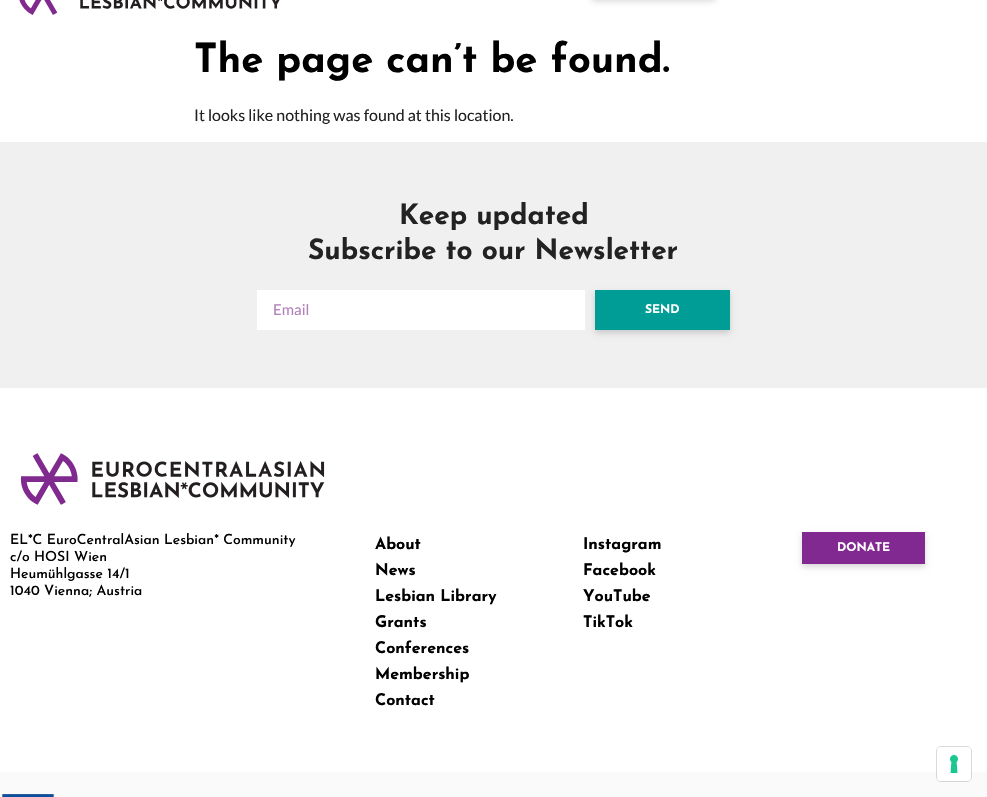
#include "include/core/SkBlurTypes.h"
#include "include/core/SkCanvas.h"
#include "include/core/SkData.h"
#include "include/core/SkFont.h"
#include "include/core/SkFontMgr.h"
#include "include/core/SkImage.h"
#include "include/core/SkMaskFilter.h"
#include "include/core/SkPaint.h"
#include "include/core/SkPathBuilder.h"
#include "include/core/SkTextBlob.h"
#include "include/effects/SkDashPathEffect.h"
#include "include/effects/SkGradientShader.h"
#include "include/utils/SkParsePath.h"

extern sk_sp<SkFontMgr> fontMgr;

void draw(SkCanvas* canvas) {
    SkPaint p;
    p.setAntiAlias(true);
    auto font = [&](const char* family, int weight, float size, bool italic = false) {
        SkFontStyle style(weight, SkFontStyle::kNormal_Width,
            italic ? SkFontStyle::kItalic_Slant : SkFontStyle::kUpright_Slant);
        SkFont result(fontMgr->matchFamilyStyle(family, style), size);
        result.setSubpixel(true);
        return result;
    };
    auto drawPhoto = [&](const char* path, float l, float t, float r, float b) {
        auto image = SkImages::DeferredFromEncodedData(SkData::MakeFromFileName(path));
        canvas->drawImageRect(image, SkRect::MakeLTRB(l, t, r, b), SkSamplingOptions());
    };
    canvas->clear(0xFFFFFFFF);
    drawPhoto("media/1.png", 19, 0, 280, 15);
    p.setColor(0x29000000);
    p.setMaskFilter(SkMaskFilter::MakeBlur(kNormal_SkBlurStyle, 3));
    canvas->drawRect(SkRect::MakeLTRB(592, -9, 715, 1), p);
    p.setMaskFilter(nullptr);
    auto font1 = font("Josefin Sans", 700, 40);
    p.setColor(0xFF000000);
    canvas->drawString("The page can’t be found.", 194, 72, font1, p);
    auto font2 = font("Lato", 400, 16);
    p.setColor(0xFF222222);
    canvas->drawString("It looks like nothing was found at this location.", 194, 121, font2, p);
    p.setColor(0xFFF0F0F0);
    canvas->drawRect(SkRect::MakeLTRB(0, 142, 987, 388), p);
    auto font3 = font("Josefin Sans", 700, 28);
    p.setColor(0xFF222222);
    canvas->drawString("Keep updated", 399, 224, font3, p);
    canvas->drawString("Subscribe to our Newsletter", 308, 259, font3, p);
    p.setColor(0xFFFFFFFF);
    canvas->drawRect(SkRect::MakeLTRB(257, 290, 585, 330), p);
    auto font4 = font("Lato", 400, 15);
    p.setColor(0xFFB37FBC);
    canvas->drawString("Email", 273, 315, font4, p);
    p.setColor(0x29000000);
    p.setMaskFilter(SkMaskFilter::MakeBlur(kNormal_SkBlurStyle, 3));
    canvas->drawRect(SkRect::MakeLTRB(595, 293, 730, 333), p);
    p.setMaskFilter(nullptr);
    p.setColor(0xFF009D96);
    canvas->drawRect(SkRect::MakeLTRB(595, 290, 730, 330), p);
    auto font5 = font("Josefin Sans", 700, 12);
    p.setColor(0xFFFFFFFF);
    canvas->drawString("SEND", 645, 313, font5, p);
    drawPhoto("media/2.png", 20, 453, 325, 505);
    auto font6 = font("Josefin Sans", 500, 14);
    p.setColor(0xFF000000);
    {
        const struct { const char* s; float x, y; } items[] = {
            {"EL*C EuroCentralAsian Lesbian* Community", 10, 544},
            {"c/o HOSI Wien", 10, 561},
            {"Heumühlgasse 14/1", 10, 578},
            {"1040 Vienna; Austria", 10, 595},
        };
        for (auto [s, x, y] : items) {
            canvas->drawString(s, x, y, font6, p);
        }
    }
    auto font7 = font("Josefin Sans", 700, 16);
    {
        const struct { const char* s; float x, y; } items[] = {
            {"About", 375, 549},
            {"News", 375, 575},
            {"Lesbian Library", 375, 601},
            {"Grants", 375, 627},
            {"Conferences", 375, 653},
            {"Membership", 375, 679},
            {"Contact", 375, 705},
            {"Instagram", 583, 549},
            {"Facebook", 583, 575},
            {"YouTube", 583, 601},
            {"TikTok", 583, 627},
        };
        for (auto [s, x, y] : items) {
            canvas->drawString(s, x, y, font7, p);
        }
    }
    p.setColor(0x29000000);
    p.setMaskFilter(SkMaskFilter::MakeBlur(kNormal_SkBlurStyle, 3));
    canvas->drawRect(SkRect::MakeLTRB(802, 535, 925, 567), p);
    p.setMaskFilter(nullptr);
    p.setColor(0xFF812990);
    canvas->drawRect(SkRect::MakeLTRB(802, 532, 925, 564), p);
    p.setColor(0xFFFFFFFF);
    canvas->drawString("DONATE", 837, 551, font5, p);
    p.setColor(0xFFFAFAFB);
    canvas->drawRect(SkRect::MakeLTRB(0, 772, 987, 797), p);
    drawPhoto("media/3.png", 2, 794, 55, 797);
    p.setStyle(SkPaint::kStroke_Style);
    p.setStrokeWidth(1);
    p.setColor(0x26000000);
    canvas->drawRoundRect(SkRect::MakeLTRB(936.5f, 746.5f, 971.5f, 781.5f), 4.5f, 4.5f, p);
    p.setStyle(SkPaint::kFill_Style);
    p.setColor(0xFFFFFFFF);
    canvas->drawRoundRect(SkRect::MakeLTRB(937, 747, 971, 781), 4, 4, p);
    drawPhoto("media/4.png", 950, 755, 958, 773);
}
